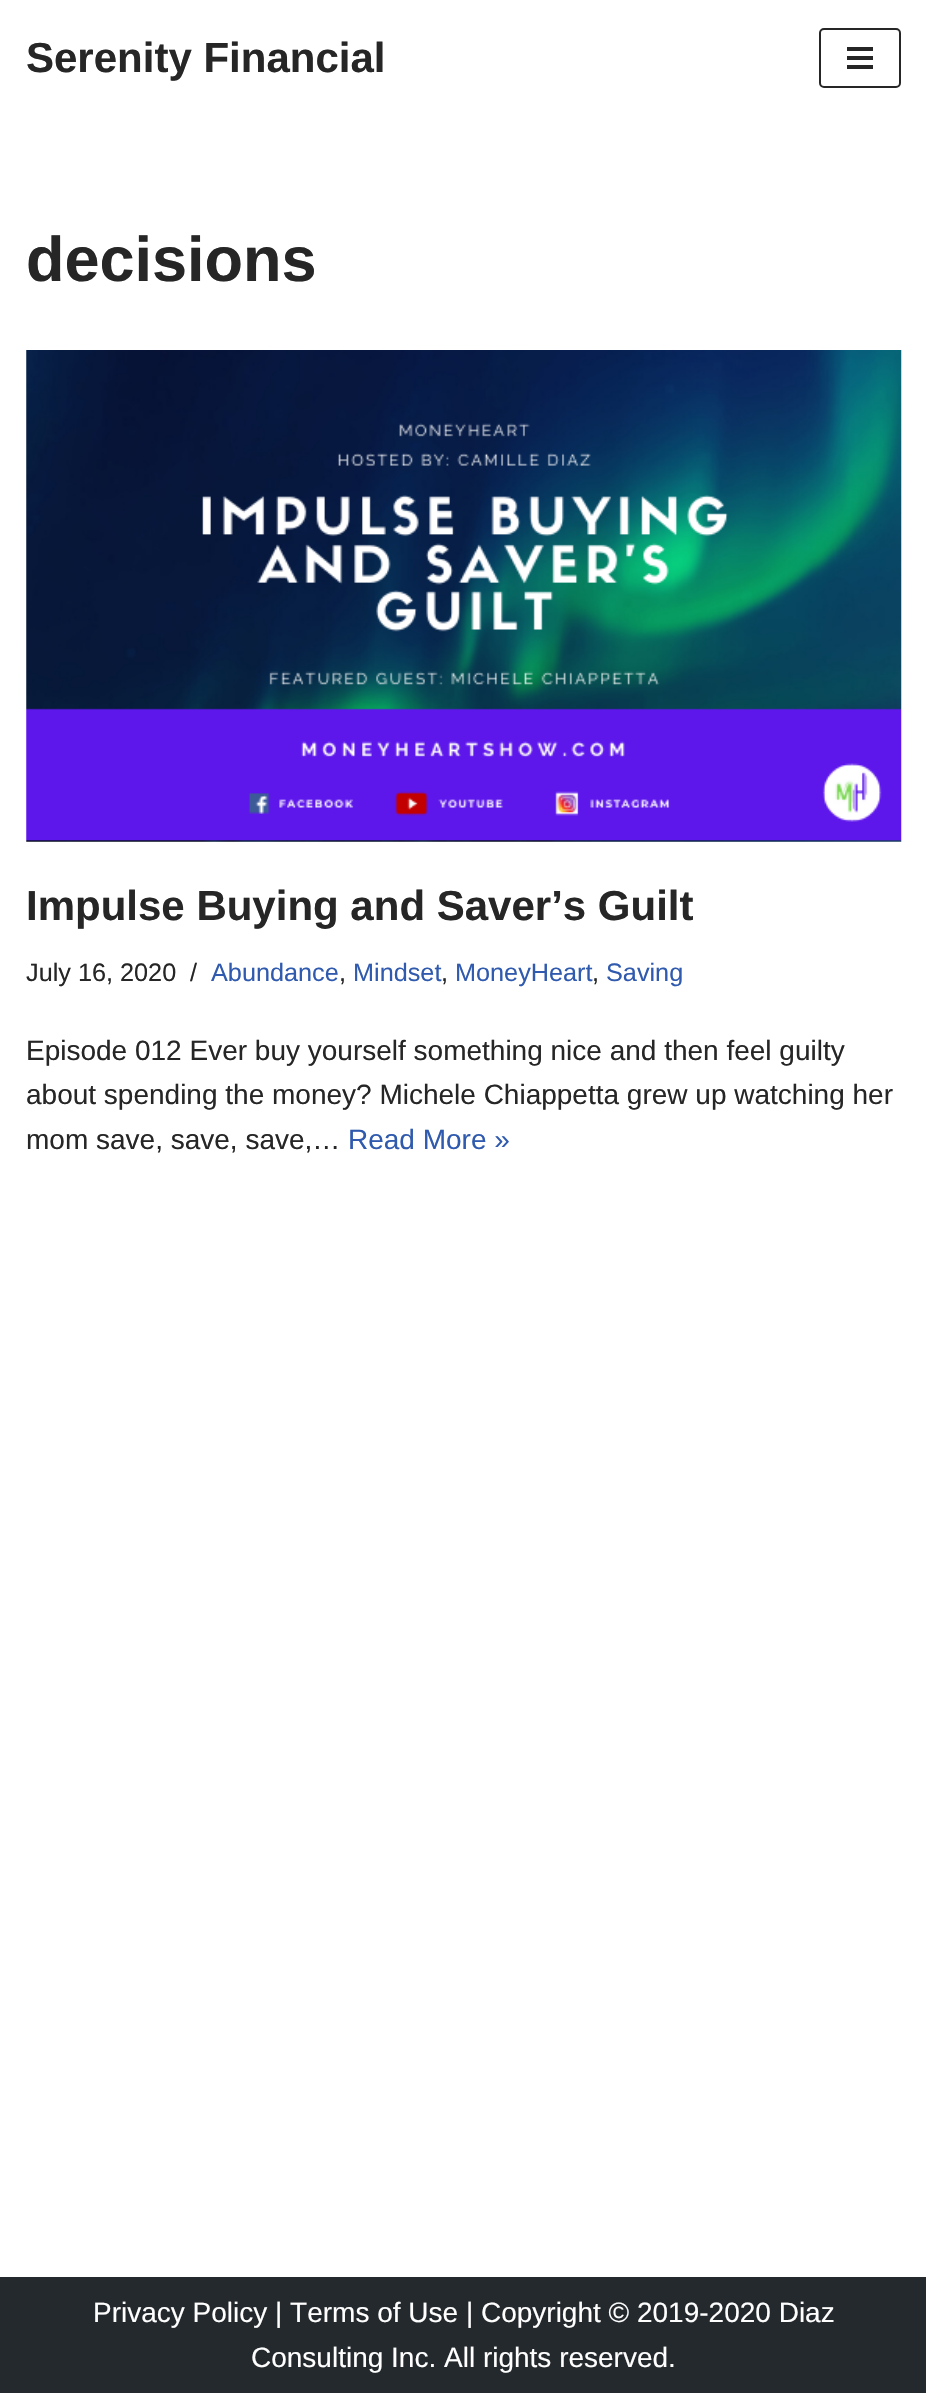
#include "include/core/SkBlurTypes.h"
#include "include/core/SkCanvas.h"
#include "include/core/SkData.h"
#include "include/core/SkFont.h"
#include "include/core/SkFontMgr.h"
#include "include/core/SkImage.h"
#include "include/core/SkMaskFilter.h"
#include "include/core/SkPaint.h"
#include "include/core/SkPathBuilder.h"
#include "include/core/SkTextBlob.h"
#include "include/effects/SkDashPathEffect.h"
#include "include/effects/SkGradientShader.h"
#include "include/utils/SkParsePath.h"

extern sk_sp<SkFontMgr> fontMgr;

void draw(SkCanvas* canvas) {
    SkPaint p;
    p.setAntiAlias(true);
    auto font = [&](const char* family, int weight, float size, bool italic = false) {
        SkFontStyle style(weight, SkFontStyle::kNormal_Width,
            italic ? SkFontStyle::kItalic_Slant : SkFontStyle::kUpright_Slant);
        SkFont result(fontMgr->matchFamilyStyle(family, style), size);
        result.setSubpixel(true);
        return result;
    };
    auto drawPhoto = [&](const char* path, float l, float t, float r, float b) {
        auto image = SkImages::DeferredFromEncodedData(SkData::MakeFromFileName(path));
        canvas->drawImageRect(image, SkRect::MakeLTRB(l, t, r, b), SkSamplingOptions());
    };
    canvas->clear(0xFFFFFFFF);
    auto font1 = font("Liberation Sans", 700, 42);
    p.setColor(0xFF272626);
    canvas->drawString("Serenity Financial", 26, 72, font1, p);
    p.setStyle(SkPaint::kStroke_Style);
    p.setStrokeWidth(2);
    canvas->drawRoundRect(SkRect::MakeLTRB(820, 29, 900, 87), 4, 4, p);
    p.setStyle(SkPaint::kFill_Style);
    {
        const struct { float l, t, r, b; SkColor color; } items[] = {
            {847, 47, 873, 51, 0xFF272626},
            {847, 56, 873, 60, 0xFF272626},
            {847, 65, 873, 69, 0xFF272626},
        };
        for (auto [l, t, r, b, color] : items) {
            p.setColor(color);
            canvas->drawRect(SkRect::MakeLTRB(l, t, r, b), p);
        }
    }
    auto font2 = font("Liberation Sans", 700, 63);
    canvas->drawString("decisions", 26, 281, font2, p);
    drawPhoto("media/1.png", 26, 350, 902, 842);
    canvas->drawString("Impulse Buying and Saver’s Guilt", 26, 920, font1, p);
    auto font3 = font("Liberation Sans", 400, 25.25f);
    canvas->drawString("July 16, 2020", 26, 981, font3, p);
    canvas->drawString("/", 190, 981, font3, p);
    p.setColor(0xFF2F5AAE);
    canvas->drawString("Abundance", 211, 981, font3, p);
    p.setColor(0xFF272626);
    canvas->drawString(",", 339, 981, font3, p);
    p.setColor(0xFF2F5AAE);
    canvas->drawString("Mindset", 353, 981, font3, p);
    p.setColor(0xFF272626);
    canvas->drawString(",", 441, 981, font3, p);
    p.setColor(0xFF2F5AAE);
    canvas->drawString("MoneyHeart", 455, 981, font3, p);
    p.setColor(0xFF272626);
    canvas->drawString(",", 592, 981, font3, p);
    p.setColor(0xFF2F5AAE);
    canvas->drawString("Saving", 606, 981, font3, p);
    auto font4 = font("Liberation Sans", 400, 28);
    p.setColor(0xFF272626);
    {
        const struct { const char* s; float x, y; } items[] = {
            {"Episode 012 Ever buy yourself something nice and then feel guilty", 26, 1060},
            {"about spending the money? Michele Chiappetta grew up watching her", 26, 1104},
            {"mom save, save, save,…", 26, 1149},
        };
        for (auto [s, x, y] : items) {
            canvas->drawString(s, x, y, font4, p);
        }
    }
    p.setColor(0xFF2F5AAE);
    canvas->drawString("Read More »", 348, 1149, font4, p);
    p.setColor(0xFF24292E);
    canvas->drawRect(SkRect::MakeLTRB(0, 2277, 926, 2393), p);
    p.setColor(0xFFFFFFFF);
    canvas->drawString("Privacy Policy | Terms of Use | Copyright © 2019-2020 Diaz", 93, 2322, font4, p);
    canvas->drawString("Consulting Inc. All rights reserved.", 251, 2367, font4, p);
}
